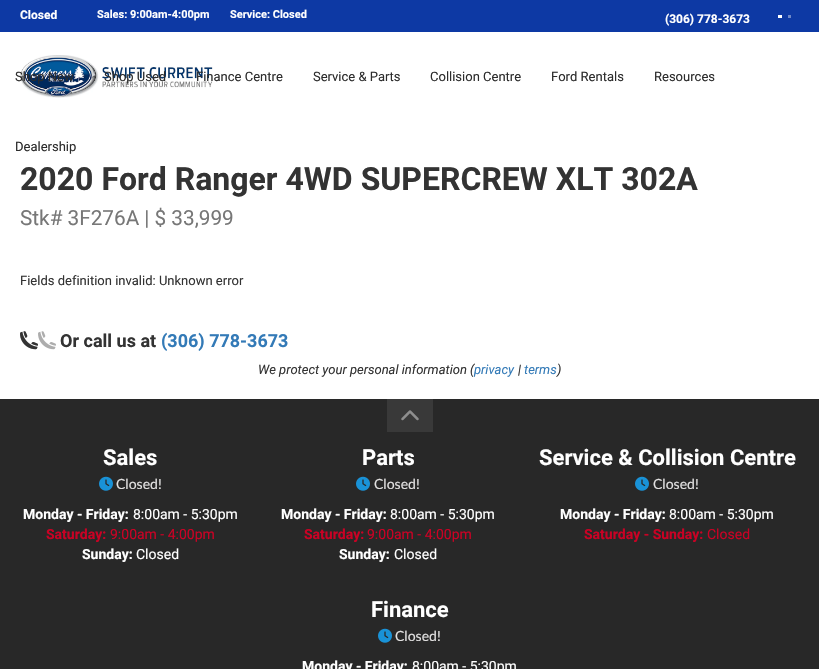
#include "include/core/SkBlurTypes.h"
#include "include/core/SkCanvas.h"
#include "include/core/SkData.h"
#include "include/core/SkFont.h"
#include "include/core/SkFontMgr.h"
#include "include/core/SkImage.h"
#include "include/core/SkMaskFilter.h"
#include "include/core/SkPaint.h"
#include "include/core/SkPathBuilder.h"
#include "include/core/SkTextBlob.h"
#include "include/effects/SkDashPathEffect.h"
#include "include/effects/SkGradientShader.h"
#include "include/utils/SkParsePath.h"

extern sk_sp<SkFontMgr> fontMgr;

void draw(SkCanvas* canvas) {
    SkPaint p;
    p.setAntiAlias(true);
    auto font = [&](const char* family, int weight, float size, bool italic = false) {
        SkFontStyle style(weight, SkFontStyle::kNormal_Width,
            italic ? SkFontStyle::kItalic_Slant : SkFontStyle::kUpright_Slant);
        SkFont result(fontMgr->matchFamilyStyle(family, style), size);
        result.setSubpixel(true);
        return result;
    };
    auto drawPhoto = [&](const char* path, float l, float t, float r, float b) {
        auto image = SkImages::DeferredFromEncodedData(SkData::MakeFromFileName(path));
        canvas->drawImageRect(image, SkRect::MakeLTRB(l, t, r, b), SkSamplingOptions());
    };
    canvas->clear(0xFFFFFFFF);
    p.setColor(0xFF0D39A4);
    canvas->drawRect(SkRect::MakeLTRB(0, 0, 819, 32), p);
    auto font1 = font("Roboto", 700, 12);
    p.setColor(0xFFFFFFFF);
    canvas->drawString("Closed", 20, 19, font1, p);
    auto font2 = font("Roboto", 700, 11);
    canvas->drawString("Sales: 9:00am-4:00pm", 97, 18, font2, p);
    canvas->drawString("Service: Closed", 230, 18, font2, p);
    canvas->drawString("(306) 778-3673", 665, 23, font1, p);
    canvas->drawRect(SkRect::MakeLTRB(778, 15, 782, 18), p);
    p.setColor(0xFF6E88C8);
    canvas->drawRect(SkRect::MakeLTRB(788, 15, 791, 18), p);
    drawPhoto("media/1.png", 20, 55, 213, 98);
    auto font3 = font("Roboto", 400, 13);
    p.setColor(0xFF2C2C2C);
    {
        const struct { const char* s; float x, y; } items[] = {
            {"Shop New", 15, 81},
            {"Shop Used", 104, 81},
            {"Finance Centre", 196, 81},
            {"Service & Parts", 313, 81},
            {"Collision Centre", 430, 81},
            {"Ford Rentals", 551, 81},
            {"Resources", 654, 81},
            {"Dealership", 15, 151},
        };
        for (auto [s, x, y] : items) {
            canvas->drawString(s, x, y, font3, p);
        }
    }
    auto font4 = font("Roboto", 700, 32);
    p.setColor(0xFF333333);
    canvas->drawString("2020 Ford Ranger 4WD SUPERCREW XLT 302A", 20, 190, font4, p);
    auto font5 = font("Roboto", 400, 20.75f);
    p.setColor(0xFF777777);
    canvas->drawString("Stk# 3F276A | $ 33,999", 20, 225, font5, p);
    p.setColor(0xFF333333);
    canvas->drawString("Fields definition invalid: Unknown error", 20, 285, font3, p);
    drawPhoto("media/2.png", 20, 331, 38, 350);
    drawPhoto("media/3.png", 20, 331, 56, 350);
    auto font6 = font("Roboto", 700, 18);
    canvas->drawString("Or call us at", 60, 347, font6, p);
    p.setColor(0xFF337AB7);
    canvas->drawString("(306) 778-3673", 161, 347, font6, p);
    auto font7 = font("Roboto", 400, 13, true);
    p.setColor(0xFF333333);
    canvas->drawString("We protect your personal information (", 258, 374, font7, p);
    p.setColor(0xFF337AB7);
    canvas->drawString("privacy", 474, 374, font7, p);
    p.setColor(0xFF333333);
    canvas->drawString("|", 518, 374, font7, p);
    p.setColor(0xFF337AB7);
    canvas->drawString("terms", 524, 374, font7, p);
    p.setColor(0xFF333333);
    canvas->drawString(")", 557, 374, font7, p);
    p.setColor(0xFF282828);
    canvas->drawRect(SkRect::MakeLTRB(0, 399, 819, 669), p);
    p.setColor(0xFF393939);
    canvas->drawRect(SkRect::MakeLTRB(387, 399, 433, 432), p);
    drawPhoto("media/4.png", 401, 410, 419, 421);
    auto font8 = font("Roboto", 700, 22);
    p.setColor(0xFFFFFFFF);
    canvas->drawString("Sales", 103, 465, font8, p);
    drawPhoto("media/5.png", 99, 476, 113, 491);
    auto font9 = font("Lato", 400, 14);
    p.setColor(0xFFE1E0E0);
    canvas->drawString("Closed!", 116, 489, font9, p);
    auto font10 = font("Roboto", 700, 14);
    p.setColor(0xFFFFFFFF);
    canvas->drawString("Monday - Friday:", 23, 519, font10, p);
    auto font11 = font("Roboto", 400, 14);
    canvas->drawString("8:00am - 5:30pm", 133, 519, font11, p);
    p.setColor(0xFFCA0124);
    canvas->drawString("Saturday:", 46, 539, font10, p);
    canvas->drawString("9:00am - 4:00pm", 110, 539, font11, p);
    p.setColor(0xFFFFFFFF);
    canvas->drawString("Sunday:", 82, 559, font10, p);
    canvas->drawString("Closed", 136, 559, font11, p);
    canvas->drawString("Parts", 362, 465, font8, p);
    drawPhoto("media/5.png", 356, 476, 370, 491);
    p.setColor(0xFFE1E0E0);
    canvas->drawString("Closed!", 374, 489, font9, p);
    p.setColor(0xFFFFFFFF);
    canvas->drawString("Monday - Friday:", 281, 519, font10, p);
    canvas->drawString("8:00am - 5:30pm", 390, 519, font11, p);
    p.setColor(0xFFCA0124);
    canvas->drawString("Saturday:", 304, 539, font10, p);
    canvas->drawString("9:00am - 4:00pm", 367, 539, font11, p);
    p.setColor(0xFFFFFFFF);
    canvas->drawString("Sunday:", 339, 559, font10, p);
    canvas->drawString("Closed", 394, 559, font11, p);
    canvas->drawString("Service & Collision Centre", 539, 465, font8, p);
    drawPhoto("media/5.png", 635, 476, 649, 491);
    p.setColor(0xFFE1E0E0);
    canvas->drawString("Closed!", 653, 489, font9, p);
    p.setColor(0xFFFFFFFF);
    canvas->drawString("Monday - Friday:", 560, 519, font10, p);
    canvas->drawString("8:00am - 5:30pm", 669, 519, font11, p);
    p.setColor(0xFFCA0124);
    canvas->drawString("Saturday - Sunday:", 584, 539, font10, p);
    canvas->drawString("Closed", 707, 539, font11, p);
    p.setColor(0xFFFFFFFF);
    canvas->drawString("Finance", 371, 617, font8, p);
    drawPhoto("media/5.png", 378, 628, 392, 643);
    p.setColor(0xFFE1E0E0);
    canvas->drawString("Closed!", 395, 641, font9, p);
    p.setColor(0xFFFFFFFF);
    canvas->drawString("Monday - Friday:", 302, 671, font10, p);
    canvas->drawString("8:00am - 5:30pm", 412, 671, font11, p);
}
